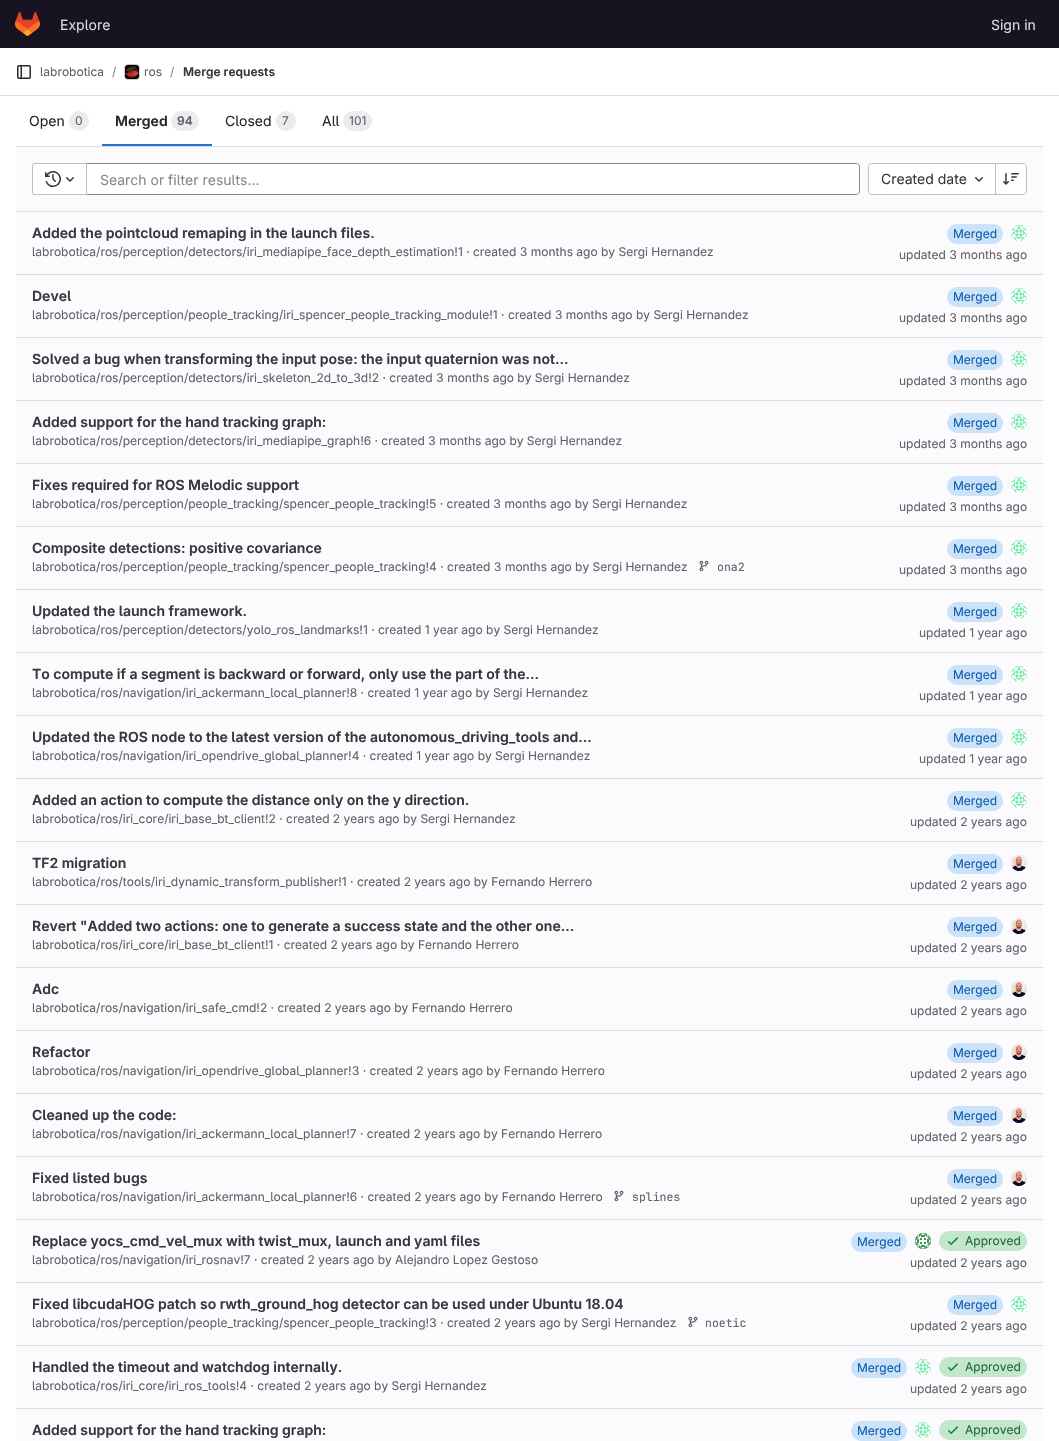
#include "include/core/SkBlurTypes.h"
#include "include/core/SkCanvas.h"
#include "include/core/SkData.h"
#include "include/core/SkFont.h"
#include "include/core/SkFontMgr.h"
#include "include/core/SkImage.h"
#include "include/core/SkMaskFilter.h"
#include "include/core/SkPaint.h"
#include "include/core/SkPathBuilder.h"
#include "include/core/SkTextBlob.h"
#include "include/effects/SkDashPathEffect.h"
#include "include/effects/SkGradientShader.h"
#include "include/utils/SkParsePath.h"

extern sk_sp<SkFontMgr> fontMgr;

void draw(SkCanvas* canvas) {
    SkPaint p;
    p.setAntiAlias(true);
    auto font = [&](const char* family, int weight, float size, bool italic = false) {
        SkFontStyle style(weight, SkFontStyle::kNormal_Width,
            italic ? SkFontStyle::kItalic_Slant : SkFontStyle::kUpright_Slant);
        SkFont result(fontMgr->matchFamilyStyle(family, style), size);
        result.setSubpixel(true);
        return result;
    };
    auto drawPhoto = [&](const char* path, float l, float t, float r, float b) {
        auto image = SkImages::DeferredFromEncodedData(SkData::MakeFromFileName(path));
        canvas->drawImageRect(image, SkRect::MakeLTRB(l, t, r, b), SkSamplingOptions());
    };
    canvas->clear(0xFFFFFFFF);
    p.setColor(0xFF171321);
    canvas->drawRect(SkRect::MakeLTRB(0, 0, 1059, 48), p);
    drawPhoto("media/1.png", 15, 12, 40, 36);
    auto font1 = font("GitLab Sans", 400, 14);
    p.setColor(0xFFDCDCDE);
    canvas->drawString("Explore", 60, 30, font1, p);
    canvas->drawString("Sign in", 991, 30, font1, p);
    canvas->drawRect(SkRect::MakeLTRB(0, 95, 1059, 96), p);
    drawPhoto("media/2.png", 17, 65, 31, 79);
    auto font2 = font("GitLab Sans", 400, 12);
    p.setColor(0xFF626168);
    canvas->drawString("labrobotica", 40, 76, font2, p);
    p.setColor(0xFF89888D);
    canvas->drawString("/", 112, 76, font2, p);
    p.setStyle(SkPaint::kStroke_Style);
    p.setStrokeWidth(1);
    p.setColor(0xFFDCDCDE);
    canvas->drawRoundRect(SkRect::MakeLTRB(124.5f, 64.5f, 139.5f, 79.5f), 3.5f, 3.5f, p);
    drawPhoto("media/3.png", 125, 65, 139, 79);
    p.setColor(0x14050506);
    canvas->drawRoundRect(SkRect::MakeLTRB(124.5f, 64.5f, 139.5f, 79.5f), 3.5f, 3.5f, p);
    p.setStyle(SkPaint::kFill_Style);
    p.setColor(0xFF626168);
    canvas->drawString("ros", 144, 76, font2, p);
    p.setColor(0xFF89888D);
    canvas->drawString("/", 170, 76, font2, p);
    auto font3 = font("GitLab Sans", 600, 12);
    p.setColor(0xFF3A383F);
    canvas->drawString("Merge requests", 183, 76, font3, p);
    p.setColor(0xFF28272D);
    canvas->drawString("Open", 29, 126, font1, p);
    p.setColor(0xFFECECEF);
    canvas->drawCircle(79, 121, 10, p);
    p.setColor(0xFF626168);
    canvas->drawString("0", 75, 125, font2, p);
    auto font4 = font("GitLab Sans", 600, 14);
    p.setColor(0xFF28272D);
    canvas->drawString("Merged", 115, 126, font4, p);
    p.setColor(0xFFECECEF);
    canvas->drawRoundRect(SkRect::MakeLTRB(171, 111, 199, 131), 10, 10, p);
    p.setColor(0xFF626168);
    canvas->drawString("94", 177, 125, font3, p);
    p.setColor(0xFF1F75CB);
    canvas->drawRect(SkRect::MakeLTRB(102, 144, 212, 146), p);
    p.setColor(0xFF28272D);
    canvas->drawString("Closed", 225, 126, font1, p);
    p.setColor(0xFFECECEF);
    canvas->drawCircle(286, 121, 10, p);
    p.setColor(0xFF626168);
    canvas->drawString("7", 282, 125, font2, p);
    p.setColor(0xFF28272D);
    canvas->drawString("All", 322, 126, font1, p);
    p.setColor(0xFFECECEF);
    canvas->drawRoundRect(SkRect::MakeLTRB(343, 111, 372, 131), 10, 10, p);
    p.setColor(0xFF626168);
    canvas->drawString("101", 349, 125, font2, p);
    {
        const struct { float l, t, r, b; SkColor color; } items[] = {
            {16, 147, 1043, 211, 0xFFFBFAFD},
            {16, 146, 1043, 147, 0xFFDCDCDE},
            {16, 211, 1043, 212, 0xFFDCDCDE},
        };
        for (auto [l, t, r, b, color] : items) {
            p.setColor(color);
            canvas->drawRect(SkRect::MakeLTRB(l, t, r, b), p);
        }
    }
    p.setColor(0xFFFFFFFF);
    canvas->drawRoundRect(SkRect::MakeLTRB(32.5f, 163.5f, 859.5f, 194.5f), 3.5f, 3.5f, p);
    p.setStyle(SkPaint::kStroke_Style);
    p.setColor(0xFF89888D);
    canvas->drawRoundRect(SkRect::MakeLTRB(32.5f, 163.5f, 859.5f, 194.5f), 3.5f, 3.5f, p);
    p.setStyle(SkPaint::kFill_Style);
    p.setColor(0xFFFFFFFF);
    canvas->drawPath(SkPathBuilder().moveTo(35, 163.5f).lineTo(86.5f, 163.5f).lineTo(86.5f, 194.5f).lineTo(35, 194.5f).cubicTo(33.5f, 194.5f, 32.5f, 193.5f, 32.5f, 192).lineTo(32.5f, 166).cubicTo(32.5f, 164.5f, 33.5f, 163.5f, 35, 163.5f).close().detach(), p);
    p.setStyle(SkPaint::kStroke_Style);
    p.setColor(0xFFBFBFC3);
    canvas->drawPath(SkPathBuilder().moveTo(35, 163.5f).lineTo(86.5f, 163.5f).lineTo(86.5f, 194.5f).lineTo(35, 194.5f).cubicTo(33.5f, 194.5f, 32.5f, 193.5f, 32.5f, 192).lineTo(32.5f, 166).cubicTo(32.5f, 164.5f, 33.5f, 163.5f, 35, 163.5f).close().detach(), p);
    drawPhoto("media/4.png", 45, 171, 61, 187);
    drawPhoto("media/5.png", 66, 177, 74, 182);
    p.setStyle(SkPaint::kFill_Style);
    p.setColor(0xFFFFFFFF);
    canvas->drawRoundRect(SkRect::MakeLTRB(87, 164, 859, 194), 4, 4, p);
    p.setColor(0xFF89888D);
    canvas->drawString("Search or filter results…", 100, 185, font1, p);
    p.setColor(0xFFFFFFFF);
    canvas->drawPath(SkPathBuilder().moveTo(872, 163.5f).lineTo(995.5f, 163.5f).lineTo(995.5f, 194.5f).lineTo(872, 194.5f).cubicTo(870, 194.5f, 868.5f, 193, 868.5f, 191).lineTo(868.5f, 167).cubicTo(868.5f, 165, 870, 163.5f, 872, 163.5f).close().detach(), p);
    p.setStyle(SkPaint::kStroke_Style);
    p.setColor(0xFFBFBFC3);
    canvas->drawPath(SkPathBuilder().moveTo(872, 163.5f).lineTo(995.5f, 163.5f).lineTo(995.5f, 194.5f).lineTo(872, 194.5f).cubicTo(870, 194.5f, 868.5f, 193, 868.5f, 191).lineTo(868.5f, 167).cubicTo(868.5f, 165, 870, 163.5f, 872, 163.5f).close().detach(), p);
    p.setStyle(SkPaint::kFill_Style);
    p.setColor(0xFF3A383F);
    canvas->drawString("Created date", 881, 184, font1, p);
    drawPhoto("media/5.png", 975, 177, 983, 182);
    p.setColor(0xFFFFFFFF);
    canvas->drawPath(SkPathBuilder().moveTo(995.5f, 163.5f).lineTo(1023, 163.5f).cubicTo(1025, 163.5f, 1026.5f, 165, 1026.5f, 167).lineTo(1026.5f, 191).cubicTo(1026.5f, 193, 1025, 194.5f, 1023, 194.5f).lineTo(995.5f, 194.5f).close().detach(), p);
    p.setStyle(SkPaint::kStroke_Style);
    p.setColor(0xFFBFBFC3);
    canvas->drawPath(SkPathBuilder().moveTo(995.5f, 163.5f).lineTo(1023, 163.5f).cubicTo(1025, 163.5f, 1026.5f, 165, 1026.5f, 167).lineTo(1026.5f, 191).cubicTo(1026.5f, 193, 1025, 194.5f, 1023, 194.5f).lineTo(995.5f, 194.5f).close().detach(), p);
    drawPhoto("media/6.png", 1003, 173, 1019, 185);
    p.setStyle(SkPaint::kFill_Style);
    p.setColor(0xFFFBFAFD);
    canvas->drawRect(SkRect::MakeLTRB(16, 212, 1043, 274), p);
    p.setColor(0xFFDCDCDE);
    canvas->drawRect(SkRect::MakeLTRB(16, 274, 1043, 275), p);
    p.setColor(0xFF3A383F);
    canvas->drawString("Added the pointcloud remaping in the launch files.", 32, 238, font4, p);
    p.setColor(0xFF626168);
    canvas->drawString("labrobotica/ros/perception/detectors/iri_mediapipe_face_depth_estimation!1 · created 3 months ago by Sergi Hernandez", 32, 256, font2, p);
    p.setColor(0xFFCBE2F9);
    canvas->drawRoundRect(SkRect::MakeLTRB(947, 224, 1003, 244), 10, 10, p);
    p.setColor(0xFF0B5CAD);
    canvas->drawString("Merged", 953, 238, font2, p);
    p.setStyle(SkPaint::kStroke_Style);
    p.setColor(0xFFE7E6E9);
    canvas->drawCircle(1019, 233, 7.5f, p);
    drawPhoto("media/7.png", 1011, 225, 1027, 241);
    p.setStyle(SkPaint::kFill_Style);
    p.setColor(0xFF626168);
    canvas->drawString("updated 3 months ago", 899, 259, font2, p);
    p.setColor(0xFFFBFAFD);
    canvas->drawRect(SkRect::MakeLTRB(16, 275, 1043, 337), p);
    p.setColor(0xFFDCDCDE);
    canvas->drawRect(SkRect::MakeLTRB(16, 337, 1043, 338), p);
    p.setColor(0xFF3A383F);
    canvas->drawString("Devel", 32, 301, font4, p);
    p.setColor(0xFF626168);
    canvas->drawString("labrobotica/ros/perception/people_tracking/iri_spencer_people_tracking_module!1 · created 3 months ago by Sergi Hernandez", 32, 319, font2, p);
    p.setColor(0xFFCBE2F9);
    canvas->drawRoundRect(SkRect::MakeLTRB(947, 287, 1003, 307), 10, 10, p);
    p.setColor(0xFF0B5CAD);
    canvas->drawString("Merged", 953, 301, font2, p);
    p.setStyle(SkPaint::kStroke_Style);
    p.setColor(0xFFE7E6E9);
    canvas->drawCircle(1019, 296, 7.5f, p);
    drawPhoto("media/7.png", 1011, 288, 1027, 304);
    p.setStyle(SkPaint::kFill_Style);
    p.setColor(0xFF626168);
    canvas->drawString("updated 3 months ago", 899, 322, font2, p);
    p.setColor(0xFFFBFAFD);
    canvas->drawRect(SkRect::MakeLTRB(16, 338, 1043, 400), p);
    p.setColor(0xFFDCDCDE);
    canvas->drawRect(SkRect::MakeLTRB(16, 400, 1043, 401), p);
    p.setColor(0xFF3A383F);
    canvas->drawString("Solved a bug when transforming the input pose: the input quaternion was not...", 32, 364, font4, p);
    p.setColor(0xFF626168);
    canvas->drawString("labrobotica/ros/perception/detectors/iri_skeleton_2d_to_3d!2 · created 3 months ago by Sergi Hernandez", 32, 382, font2, p);
    p.setColor(0xFFCBE2F9);
    canvas->drawRoundRect(SkRect::MakeLTRB(947, 350, 1003, 370), 10, 10, p);
    p.setColor(0xFF0B5CAD);
    canvas->drawString("Merged", 953, 364, font2, p);
    p.setStyle(SkPaint::kStroke_Style);
    p.setColor(0xFFE7E6E9);
    canvas->drawCircle(1019, 359, 7.5f, p);
    drawPhoto("media/7.png", 1011, 351, 1027, 367);
    p.setStyle(SkPaint::kFill_Style);
    p.setColor(0xFF626168);
    canvas->drawString("updated 3 months ago", 899, 385, font2, p);
    p.setColor(0xFFFBFAFD);
    canvas->drawRect(SkRect::MakeLTRB(16, 401, 1043, 463), p);
    p.setColor(0xFFDCDCDE);
    canvas->drawRect(SkRect::MakeLTRB(16, 463, 1043, 464), p);
    p.setColor(0xFF3A383F);
    canvas->drawString("Added support for the hand tracking graph:", 32, 427, font4, p);
    p.setColor(0xFF626168);
    canvas->drawString("labrobotica/ros/perception/detectors/iri_mediapipe_graph!6 · created 3 months ago by Sergi Hernandez", 32, 445, font2, p);
    p.setColor(0xFFCBE2F9);
    canvas->drawRoundRect(SkRect::MakeLTRB(947, 413, 1003, 433), 10, 10, p);
    p.setColor(0xFF0B5CAD);
    canvas->drawString("Merged", 953, 427, font2, p);
    p.setStyle(SkPaint::kStroke_Style);
    p.setColor(0xFFE7E6E9);
    canvas->drawCircle(1019, 422, 7.5f, p);
    drawPhoto("media/7.png", 1011, 414, 1027, 430);
    p.setStyle(SkPaint::kFill_Style);
    p.setColor(0xFF626168);
    canvas->drawString("updated 3 months ago", 899, 448, font2, p);
    p.setColor(0xFFFBFAFD);
    canvas->drawRect(SkRect::MakeLTRB(16, 464, 1043, 526), p);
    p.setColor(0xFFDCDCDE);
    canvas->drawRect(SkRect::MakeLTRB(16, 526, 1043, 527), p);
    p.setColor(0xFF3A383F);
    canvas->drawString("Fixes required for ROS Melodic support", 32, 490, font4, p);
    p.setColor(0xFF626168);
    canvas->drawString("labrobotica/ros/perception/people_tracking/spencer_people_tracking!5 · created 3 months ago by Sergi Hernandez", 32, 508, font2, p);
    p.setColor(0xFFCBE2F9);
    canvas->drawRoundRect(SkRect::MakeLTRB(947, 476, 1003, 496), 10, 10, p);
    p.setColor(0xFF0B5CAD);
    canvas->drawString("Merged", 953, 490, font2, p);
    p.setStyle(SkPaint::kStroke_Style);
    p.setColor(0xFFE7E6E9);
    canvas->drawCircle(1019, 485, 7.5f, p);
    drawPhoto("media/7.png", 1011, 477, 1027, 493);
    p.setStyle(SkPaint::kFill_Style);
    p.setColor(0xFF626168);
    canvas->drawString("updated 3 months ago", 899, 511, font2, p);
    p.setColor(0xFFFBFAFD);
    canvas->drawRect(SkRect::MakeLTRB(16, 527, 1043, 589), p);
    p.setColor(0xFFDCDCDE);
    canvas->drawRect(SkRect::MakeLTRB(16, 589, 1043, 590), p);
    p.setColor(0xFF3A383F);
    canvas->drawString("Composite detections: positive covariance", 32, 553, font4, p);
    p.setColor(0xFF626168);
    canvas->drawString("labrobotica/ros/perception/people_tracking/spencer_people_tracking!4 · created 3 months ago by Sergi Hernandez", 32, 571, font2, p);
    drawPhoto("media/8.png", 699, 560, 709, 572);
    auto font5 = font("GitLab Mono", 400, 11.5f);
    canvas->drawString("ona2", 717, 571, font5, p);
    p.setColor(0xFFCBE2F9);
    canvas->drawRoundRect(SkRect::MakeLTRB(947, 539, 1003, 559), 10, 10, p);
    p.setColor(0xFF0B5CAD);
    canvas->drawString("Merged", 953, 553, font2, p);
    p.setStyle(SkPaint::kStroke_Style);
    p.setColor(0xFFE7E6E9);
    canvas->drawCircle(1019, 548, 7.5f, p);
    drawPhoto("media/7.png", 1011, 540, 1027, 556);
    p.setStyle(SkPaint::kFill_Style);
    p.setColor(0xFF626168);
    canvas->drawString("updated 3 months ago", 899, 574, font2, p);
    p.setColor(0xFFFBFAFD);
    canvas->drawRect(SkRect::MakeLTRB(16, 590, 1043, 652), p);
    p.setColor(0xFFDCDCDE);
    canvas->drawRect(SkRect::MakeLTRB(16, 652, 1043, 653), p);
    p.setColor(0xFF3A383F);
    canvas->drawString("Updated the launch framework.", 32, 616, font4, p);
    p.setColor(0xFF626168);
    canvas->drawString("labrobotica/ros/perception/detectors/yolo_ros_landmarks!1 · created 1 year ago by Sergi Hernandez", 32, 634, font2, p);
    p.setColor(0xFFCBE2F9);
    canvas->drawRoundRect(SkRect::MakeLTRB(947, 602, 1003, 622), 10, 10, p);
    p.setColor(0xFF0B5CAD);
    canvas->drawString("Merged", 953, 616, font2, p);
    p.setStyle(SkPaint::kStroke_Style);
    p.setColor(0xFFE7E6E9);
    canvas->drawCircle(1019, 611, 7.5f, p);
    drawPhoto("media/7.png", 1011, 603, 1027, 619);
    p.setStyle(SkPaint::kFill_Style);
    p.setColor(0xFF626168);
    canvas->drawString("updated 1 year ago", 919, 637, font2, p);
    p.setColor(0xFFFBFAFD);
    canvas->drawRect(SkRect::MakeLTRB(16, 653, 1043, 715), p);
    p.setColor(0xFFDCDCDE);
    canvas->drawRect(SkRect::MakeLTRB(16, 715, 1043, 716), p);
    p.setColor(0xFF3A383F);
    canvas->drawString("To compute if a segment is backward or forward, only use the part of the...", 32, 679, font4, p);
    p.setColor(0xFF626168);
    canvas->drawString("labrobotica/ros/navigation/iri_ackermann_local_planner!8 · created 1 year ago by Sergi Hernandez", 32, 697, font2, p);
    p.setColor(0xFFCBE2F9);
    canvas->drawRoundRect(SkRect::MakeLTRB(947, 665, 1003, 685), 10, 10, p);
    p.setColor(0xFF0B5CAD);
    canvas->drawString("Merged", 953, 679, font2, p);
    p.setStyle(SkPaint::kStroke_Style);
    p.setColor(0xFFE7E6E9);
    canvas->drawCircle(1019, 674, 7.5f, p);
    drawPhoto("media/7.png", 1011, 666, 1027, 682);
    p.setStyle(SkPaint::kFill_Style);
    p.setColor(0xFF626168);
    canvas->drawString("updated 1 year ago", 919, 700, font2, p);
    p.setColor(0xFFFBFAFD);
    canvas->drawRect(SkRect::MakeLTRB(16, 716, 1043, 778), p);
    p.setColor(0xFFDCDCDE);
    canvas->drawRect(SkRect::MakeLTRB(16, 778, 1043, 779), p);
    p.setColor(0xFF3A383F);
    canvas->drawString("Updated the ROS node to the latest version of the autonomous_driving_tools and...", 32, 742, font4, p);
    p.setColor(0xFF626168);
    canvas->drawString("labrobotica/ros/navigation/iri_opendrive_global_planner!4 · created 1 year ago by Sergi Hernandez", 32, 760, font2, p);
    p.setColor(0xFFCBE2F9);
    canvas->drawRoundRect(SkRect::MakeLTRB(947, 728, 1003, 748), 10, 10, p);
    p.setColor(0xFF0B5CAD);
    canvas->drawString("Merged", 953, 742, font2, p);
    p.setStyle(SkPaint::kStroke_Style);
    p.setColor(0xFFE7E6E9);
    canvas->drawCircle(1019, 737, 7.5f, p);
    drawPhoto("media/7.png", 1011, 729, 1027, 745);
    p.setStyle(SkPaint::kFill_Style);
    p.setColor(0xFF626168);
    canvas->drawString("updated 1 year ago", 919, 763, font2, p);
    p.setColor(0xFFFBFAFD);
    canvas->drawRect(SkRect::MakeLTRB(16, 779, 1043, 841), p);
    p.setColor(0xFFDCDCDE);
    canvas->drawRect(SkRect::MakeLTRB(16, 841, 1043, 842), p);
    p.setColor(0xFF3A383F);
    canvas->drawString("Added an action to compute the distance only on the y direction.", 32, 805, font4, p);
    p.setColor(0xFF626168);
    canvas->drawString("labrobotica/ros/iri_core/iri_base_bt_client!2 · created 2 years ago by Sergi Hernandez", 32, 823, font2, p);
    p.setColor(0xFFCBE2F9);
    canvas->drawRoundRect(SkRect::MakeLTRB(947, 791, 1003, 811), 10, 10, p);
    p.setColor(0xFF0B5CAD);
    canvas->drawString("Merged", 953, 805, font2, p);
    p.setStyle(SkPaint::kStroke_Style);
    p.setColor(0xFFE7E6E9);
    canvas->drawCircle(1019, 800, 7.5f, p);
    drawPhoto("media/7.png", 1011, 792, 1027, 808);
    p.setStyle(SkPaint::kFill_Style);
    p.setColor(0xFF626168);
    canvas->drawString("updated 2 years ago", 910, 826, font2, p);
    p.setColor(0xFFFBFAFD);
    canvas->drawRect(SkRect::MakeLTRB(16, 842, 1043, 904), p);
    p.setColor(0xFFDCDCDE);
    canvas->drawRect(SkRect::MakeLTRB(16, 904, 1043, 905), p);
    p.setColor(0xFF3A383F);
    canvas->drawString("TF2 migration", 32, 868, font4, p);
    p.setColor(0xFF626168);
    canvas->drawString("labrobotica/ros/tools/iri_dynamic_transform_publisher!1 · created 2 years ago by Fernando Herrero", 32, 886, font2, p);
    p.setColor(0xFFCBE2F9);
    canvas->drawRoundRect(SkRect::MakeLTRB(947, 854, 1003, 874), 10, 10, p);
    p.setColor(0xFF0B5CAD);
    canvas->drawString("Merged", 953, 868, font2, p);
    p.setStyle(SkPaint::kStroke_Style);
    p.setColor(0xFFE7E6E9);
    canvas->drawCircle(1019, 863, 7.5f, p);
    drawPhoto("media/9.png", 1011, 855, 1027, 871);
    p.setStyle(SkPaint::kFill_Style);
    p.setColor(0xFF626168);
    canvas->drawString("updated 2 years ago", 910, 889, font2, p);
    p.setColor(0xFFFBFAFD);
    canvas->drawRect(SkRect::MakeLTRB(16, 905, 1043, 967), p);
    p.setColor(0xFFDCDCDE);
    canvas->drawRect(SkRect::MakeLTRB(16, 967, 1043, 968), p);
    p.setColor(0xFF3A383F);
    canvas->drawString("Revert \"Added two actions: one to generate a success state and the other one...", 32, 931, font4, p);
    p.setColor(0xFF626168);
    canvas->drawString("labrobotica/ros/iri_core/iri_base_bt_client!1 · created 2 years ago by Fernando Herrero", 32, 949, font2, p);
    p.setColor(0xFFCBE2F9);
    canvas->drawRoundRect(SkRect::MakeLTRB(947, 917, 1003, 937), 10, 10, p);
    p.setColor(0xFF0B5CAD);
    canvas->drawString("Merged", 953, 931, font2, p);
    p.setStyle(SkPaint::kStroke_Style);
    p.setColor(0xFFE7E6E9);
    canvas->drawCircle(1019, 926, 7.5f, p);
    drawPhoto("media/9.png", 1011, 918, 1027, 934);
    p.setStyle(SkPaint::kFill_Style);
    p.setColor(0xFF626168);
    canvas->drawString("updated 2 years ago", 910, 952, font2, p);
    p.setColor(0xFFFBFAFD);
    canvas->drawRect(SkRect::MakeLTRB(16, 968, 1043, 1030), p);
    p.setColor(0xFFDCDCDE);
    canvas->drawRect(SkRect::MakeLTRB(16, 1030, 1043, 1031), p);
    p.setColor(0xFF3A383F);
    canvas->drawString("Adc", 32, 994, font4, p);
    p.setColor(0xFF626168);
    canvas->drawString("labrobotica/ros/navigation/iri_safe_cmd!2 · created 2 years ago by Fernando Herrero", 32, 1012, font2, p);
    p.setColor(0xFFCBE2F9);
    canvas->drawRoundRect(SkRect::MakeLTRB(947, 980, 1003, 1000), 10, 10, p);
    p.setColor(0xFF0B5CAD);
    canvas->drawString("Merged", 953, 994, font2, p);
    p.setStyle(SkPaint::kStroke_Style);
    p.setColor(0xFFE7E6E9);
    canvas->drawCircle(1019, 989, 7.5f, p);
    drawPhoto("media/9.png", 1011, 981, 1027, 997);
    p.setStyle(SkPaint::kFill_Style);
    p.setColor(0xFF626168);
    canvas->drawString("updated 2 years ago", 910, 1015, font2, p);
    p.setColor(0xFFFBFAFD);
    canvas->drawRect(SkRect::MakeLTRB(16, 1031, 1043, 1093), p);
    p.setColor(0xFFDCDCDE);
    canvas->drawRect(SkRect::MakeLTRB(16, 1093, 1043, 1094), p);
    p.setColor(0xFF3A383F);
    canvas->drawString("Refactor", 32, 1057, font4, p);
    p.setColor(0xFF626168);
    canvas->drawString("labrobotica/ros/navigation/iri_opendrive_global_planner!3 · created 2 years ago by Fernando Herrero", 32, 1075, font2, p);
    p.setColor(0xFFCBE2F9);
    canvas->drawRoundRect(SkRect::MakeLTRB(947, 1043, 1003, 1063), 10, 10, p);
    p.setColor(0xFF0B5CAD);
    canvas->drawString("Merged", 953, 1057, font2, p);
    p.setStyle(SkPaint::kStroke_Style);
    p.setColor(0xFFE7E6E9);
    canvas->drawCircle(1019, 1052, 7.5f, p);
    drawPhoto("media/9.png", 1011, 1044, 1027, 1060);
    p.setStyle(SkPaint::kFill_Style);
    p.setColor(0xFF626168);
    canvas->drawString("updated 2 years ago", 910, 1078, font2, p);
    p.setColor(0xFFFBFAFD);
    canvas->drawRect(SkRect::MakeLTRB(16, 1094, 1043, 1156), p);
    p.setColor(0xFFDCDCDE);
    canvas->drawRect(SkRect::MakeLTRB(16, 1156, 1043, 1157), p);
    p.setColor(0xFF3A383F);
    canvas->drawString("Cleaned up the code:", 32, 1120, font4, p);
    p.setColor(0xFF626168);
    canvas->drawString("labrobotica/ros/navigation/iri_ackermann_local_planner!7 · created 2 years ago by Fernando Herrero", 32, 1138, font2, p);
    p.setColor(0xFFCBE2F9);
    canvas->drawRoundRect(SkRect::MakeLTRB(947, 1106, 1003, 1126), 10, 10, p);
    p.setColor(0xFF0B5CAD);
    canvas->drawString("Merged", 953, 1120, font2, p);
    p.setStyle(SkPaint::kStroke_Style);
    p.setColor(0xFFE7E6E9);
    canvas->drawCircle(1019, 1115, 7.5f, p);
    drawPhoto("media/9.png", 1011, 1107, 1027, 1123);
    p.setStyle(SkPaint::kFill_Style);
    p.setColor(0xFF626168);
    canvas->drawString("updated 2 years ago", 910, 1141, font2, p);
    p.setColor(0xFFFBFAFD);
    canvas->drawRect(SkRect::MakeLTRB(16, 1157, 1043, 1219), p);
    p.setColor(0xFFDCDCDE);
    canvas->drawRect(SkRect::MakeLTRB(16, 1219, 1043, 1220), p);
    p.setColor(0xFF3A383F);
    canvas->drawString("Fixed listed bugs", 32, 1183, font4, p);
    p.setColor(0xFF626168);
    canvas->drawString("labrobotica/ros/navigation/iri_ackermann_local_planner!6 · created 2 years ago by Fernando Herrero", 32, 1201, font2, p);
    drawPhoto("media/10.png", 614, 1190, 624, 1202);
    canvas->drawString("splines", 632, 1201, font5, p);
    p.setColor(0xFFCBE2F9);
    canvas->drawRoundRect(SkRect::MakeLTRB(947, 1169, 1003, 1189), 10, 10, p);
    p.setColor(0xFF0B5CAD);
    canvas->drawString("Merged", 953, 1183, font2, p);
    p.setStyle(SkPaint::kStroke_Style);
    p.setColor(0xFFE7E6E9);
    canvas->drawCircle(1019, 1178, 7.5f, p);
    drawPhoto("media/9.png", 1011, 1170, 1027, 1186);
    p.setStyle(SkPaint::kFill_Style);
    p.setColor(0xFF626168);
    canvas->drawString("updated 2 years ago", 910, 1204, font2, p);
    p.setColor(0xFFFBFAFD);
    canvas->drawRect(SkRect::MakeLTRB(16, 1220, 1043, 1282), p);
    p.setColor(0xFFDCDCDE);
    canvas->drawRect(SkRect::MakeLTRB(16, 1282, 1043, 1283), p);
    p.setColor(0xFF3A383F);
    canvas->drawString("Replace yocs_cmd_vel_mux with twist_mux, launch and yaml files", 32, 1246, font4, p);
    p.setColor(0xFF626168);
    canvas->drawString("labrobotica/ros/navigation/iri_rosnav!7 · created 2 years ago by Alejandro Lopez Gestoso", 32, 1264, font2, p);
    p.setColor(0xFFCBE2F9);
    canvas->drawRoundRect(SkRect::MakeLTRB(851, 1232, 907, 1252), 10, 10, p);
    p.setColor(0xFF0B5CAD);
    canvas->drawString("Merged", 857, 1246, font2, p);
    p.setStyle(SkPaint::kStroke_Style);
    p.setColor(0xFFE7E6E9);
    canvas->drawCircle(923, 1241, 7.5f, p);
    drawPhoto("media/11.png", 915, 1233, 931, 1249);
    p.setStyle(SkPaint::kFill_Style);
    p.setColor(0xFFC3E6CD);
    canvas->drawRoundRect(SkRect::MakeLTRB(939, 1231, 1027, 1251), 10, 10, p);
    drawPhoto("media/12.png", 948, 1237, 958, 1245);
    p.setColor(0xFF24663B);
    canvas->drawString("Approved", 965, 1245, font2, p);
    p.setColor(0xFF626168);
    canvas->drawString("updated 2 years ago", 910, 1267, font2, p);
    p.setColor(0xFFFBFAFD);
    canvas->drawRect(SkRect::MakeLTRB(16, 1283, 1043, 1345), p);
    p.setColor(0xFFDCDCDE);
    canvas->drawRect(SkRect::MakeLTRB(16, 1345, 1043, 1346), p);
    p.setColor(0xFF3A383F);
    canvas->drawString("Fixed libcudaHOG patch so rwth_ground_hog detector can be used under Ubuntu 18.04", 32, 1309, font4, p);
    p.setColor(0xFF626168);
    canvas->drawString("labrobotica/ros/perception/people_tracking/spencer_people_tracking!3 · created 2 years ago by Sergi Hernandez", 32, 1327, font2, p);
    drawPhoto("media/13.png", 688, 1316, 698, 1328);
    canvas->drawString("noetic", 705, 1327, font5, p);
    p.setColor(0xFFCBE2F9);
    canvas->drawRoundRect(SkRect::MakeLTRB(947, 1295, 1003, 1315), 10, 10, p);
    p.setColor(0xFF0B5CAD);
    canvas->drawString("Merged", 953, 1309, font2, p);
    p.setStyle(SkPaint::kStroke_Style);
    p.setColor(0xFFE7E6E9);
    canvas->drawCircle(1019, 1304, 7.5f, p);
    drawPhoto("media/7.png", 1011, 1296, 1027, 1312);
    p.setStyle(SkPaint::kFill_Style);
    p.setColor(0xFF626168);
    canvas->drawString("updated 2 years ago", 910, 1330, font2, p);
    p.setColor(0xFFFBFAFD);
    canvas->drawRect(SkRect::MakeLTRB(16, 1346, 1043, 1408), p);
    p.setColor(0xFFDCDCDE);
    canvas->drawRect(SkRect::MakeLTRB(16, 1408, 1043, 1409), p);
    p.setColor(0xFF3A383F);
    canvas->drawString("Handled the timeout and watchdog internally.", 32, 1372, font4, p);
    p.setColor(0xFF626168);
    canvas->drawString("labrobotica/ros/iri_core/iri_ros_tools!4 · created 2 years ago by Sergi Hernandez", 32, 1390, font2, p);
    p.setColor(0xFFCBE2F9);
    canvas->drawRoundRect(SkRect::MakeLTRB(851, 1358, 907, 1378), 10, 10, p);
    p.setColor(0xFF0B5CAD);
    canvas->drawString("Merged", 857, 1372, font2, p);
    p.setStyle(SkPaint::kStroke_Style);
    p.setColor(0xFFE7E6E9);
    canvas->drawCircle(923, 1367, 7.5f, p);
    drawPhoto("media/14.png", 915, 1359, 931, 1375);
    p.setStyle(SkPaint::kFill_Style);
    p.setColor(0xFFC3E6CD);
    canvas->drawRoundRect(SkRect::MakeLTRB(939, 1357, 1027, 1377), 10, 10, p);
    drawPhoto("media/12.png", 948, 1363, 958, 1371);
    p.setColor(0xFF24663B);
    canvas->drawString("Approved", 965, 1371, font2, p);
    p.setColor(0xFF626168);
    canvas->drawString("updated 2 years ago", 910, 1393, font2, p);
    p.setColor(0xFFFBFAFD);
    canvas->drawRect(SkRect::MakeLTRB(16, 1409, 1043, 1441), p);
    p.setColor(0xFF3A383F);
    canvas->drawString("Added support for the hand tracking graph:", 32, 1435, font4, p);
    p.setColor(0xFFCBE2F9);
    canvas->drawRoundRect(SkRect::MakeLTRB(851, 1421, 907, 1441), 10, 10, p);
    p.setColor(0xFF0B5CAD);
    canvas->drawString("Merged", 857, 1435, font2, p);
    p.setStyle(SkPaint::kStroke_Style);
    p.setColor(0xFFE7E6E9);
    canvas->drawCircle(923, 1430, 7.5f, p);
    drawPhoto("media/14.png", 915, 1422, 931, 1438);
    p.setStyle(SkPaint::kFill_Style);
    p.setColor(0xFFC3E6CD);
    canvas->drawRoundRect(SkRect::MakeLTRB(939, 1420, 1027, 1440), 10, 10, p);
    drawPhoto("media/12.png", 948, 1426, 958, 1434);
    p.setColor(0xFF24663B);
    canvas->drawString("Approved", 965, 1434, font2, p);
}
